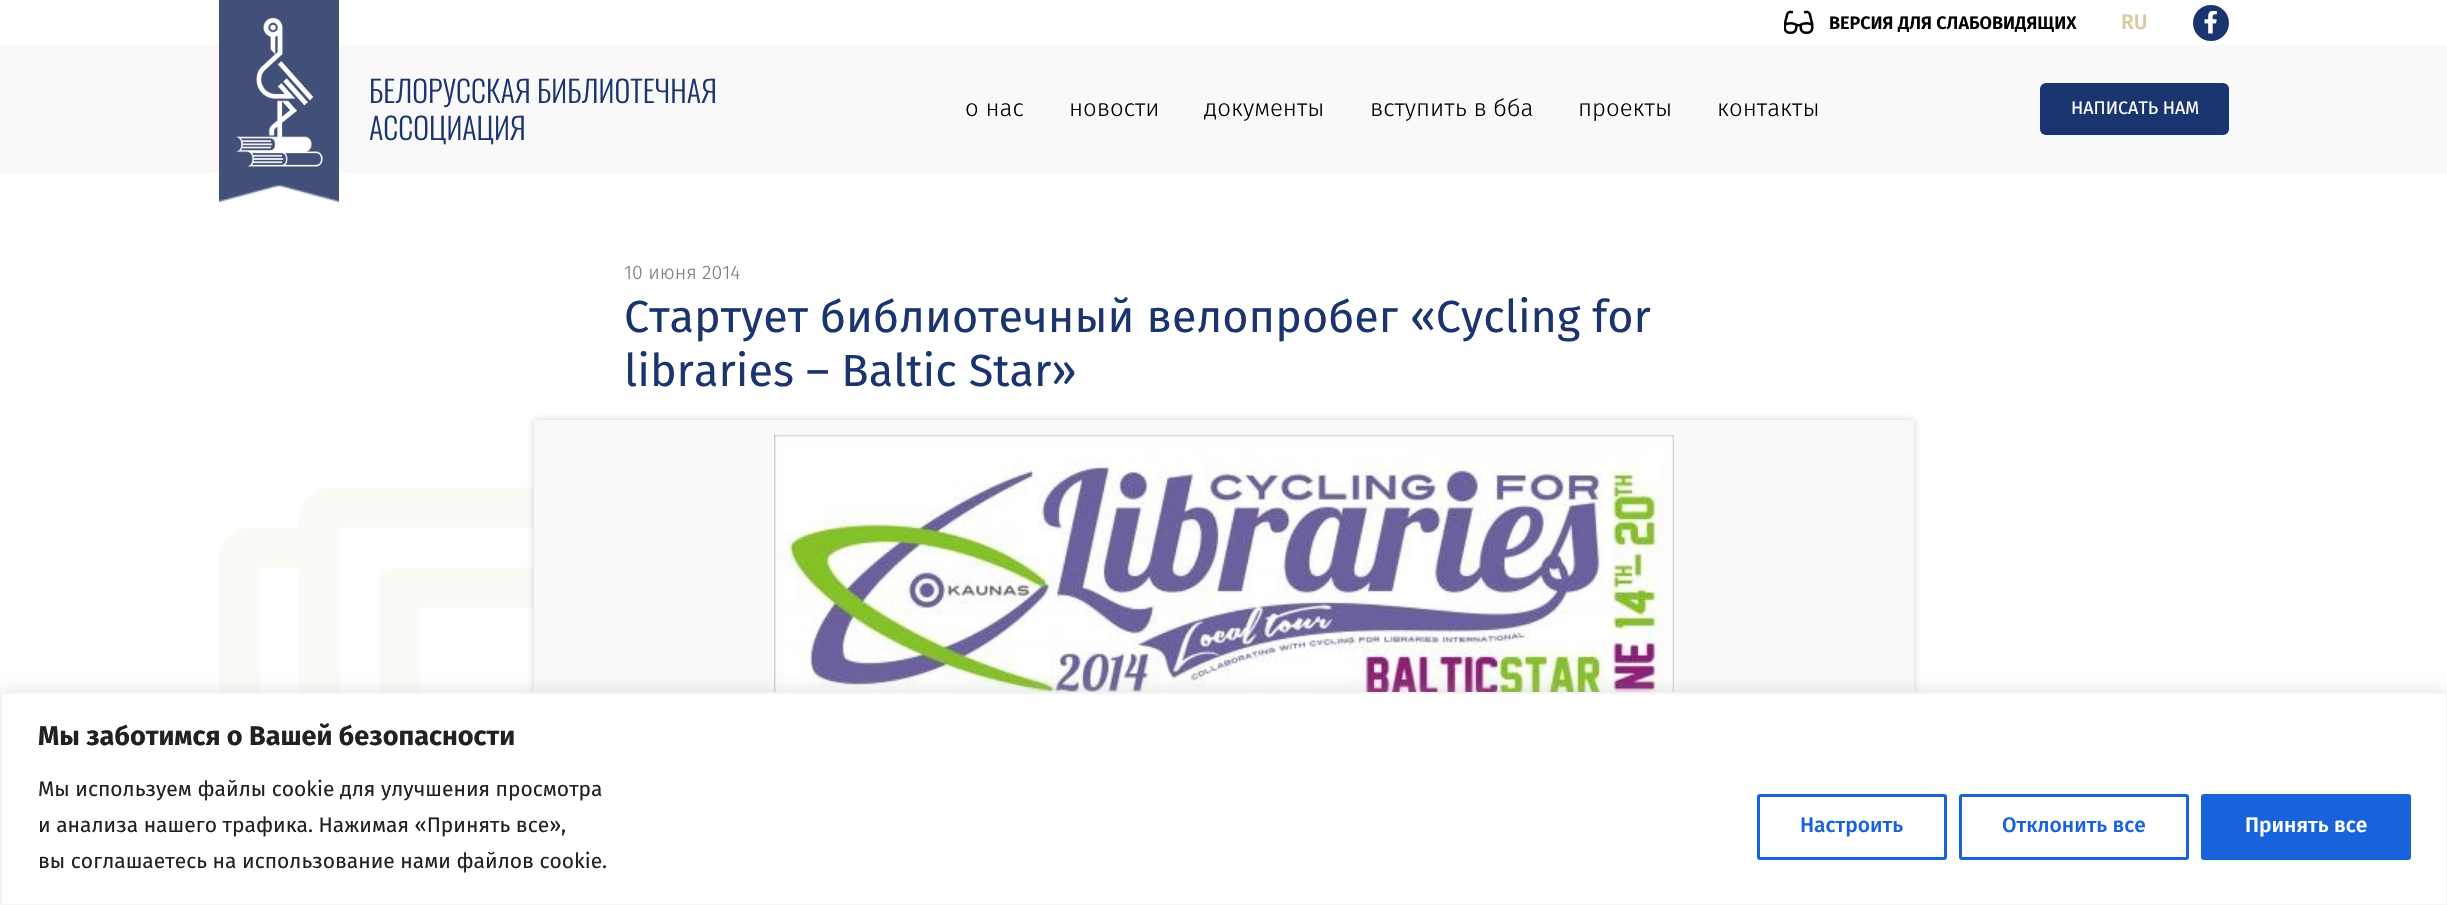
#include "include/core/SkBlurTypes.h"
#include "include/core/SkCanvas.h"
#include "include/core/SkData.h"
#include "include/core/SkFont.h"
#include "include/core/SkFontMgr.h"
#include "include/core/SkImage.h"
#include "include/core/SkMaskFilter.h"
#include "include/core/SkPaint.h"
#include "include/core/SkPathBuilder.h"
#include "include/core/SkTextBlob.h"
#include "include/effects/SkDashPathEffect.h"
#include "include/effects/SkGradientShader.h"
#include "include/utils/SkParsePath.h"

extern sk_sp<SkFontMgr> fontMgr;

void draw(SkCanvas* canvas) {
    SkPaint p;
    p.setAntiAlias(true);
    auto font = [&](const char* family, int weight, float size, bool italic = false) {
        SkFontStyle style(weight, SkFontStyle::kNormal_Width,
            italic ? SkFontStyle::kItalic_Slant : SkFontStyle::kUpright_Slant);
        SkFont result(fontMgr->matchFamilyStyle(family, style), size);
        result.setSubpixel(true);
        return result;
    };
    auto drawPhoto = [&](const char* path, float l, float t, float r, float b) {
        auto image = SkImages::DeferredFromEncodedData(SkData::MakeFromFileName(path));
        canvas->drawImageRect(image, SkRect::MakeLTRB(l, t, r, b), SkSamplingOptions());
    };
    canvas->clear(0xFFFFFFFF);
    drawPhoto("media/1.png", 1784, 10, 1814, 34);
    auto font1 = font("Fira Sans", 600, 18);
    p.setColor(0xFF000000);
    canvas->drawString("ВЕРСИЯ ДЛЯ СЛАБОВИДЯЩИХ", 1829, 29, font1, p);
    auto font2 = font("Fira Sans", 500, 21);
    p.setColor(0xFFD9CBA0);
    canvas->drawString("RU", 2121, 29, font2, p);
    p.setColor(0xFF1A346F);
    canvas->drawCircle(2211, 23, 18, p);
    drawPhoto("media/2.png", 2204, 11, 2217, 34);
    p.setColor(0xFFF9F9F9);
    canvas->drawRect(SkRect::MakeLTRB(0, 45, 2447, 173), p);
    drawPhoto("media/3.png", 219, 0, 339, 203);
    drawPhoto("media/4.png", 236, 18, 323, 167);
    auto font3 = font("Oswald", 300, 30);
    p.setColor(0xFF1A346F);
    canvas->drawString("БЕЛОРУССКАЯ БИБЛИОТЕЧНАЯ", 369, 103, font3, p);
    canvas->drawString("АССОЦИАЦИЯ", 369, 140, font3, p);
    auto font4 = font("Fira Sans", 300, 24);
    p.setColor(0xFF000000);
    {
        const struct { const char* s; float x, y; } items[] = {
            {"о нас", 965, 116},
            {"новости", 1069, 116},
            {"документы", 1204, 116},
            {"вступить в бба", 1370, 116},
            {"проекты", 1578, 116},
            {"контакты", 1717, 116},
        };
        for (auto [s, x, y] : items) {
            canvas->drawString(s, x, y, font4, p);
        }
    }
    p.setColor(0xFF1A346F);
    canvas->drawRoundRect(SkRect::MakeLTRB(2040, 83, 2229, 135), 6, 6, p);
    auto font5 = font("Fira Sans", 400, 18);
    p.setColor(0xFFFFFFFF);
    canvas->drawString("НАПИСАТЬ НАМ", 2071, 114, font5, p);
    drawPhoto("media/5.png", 219, 487, 534, 692);
    auto font6 = font("Fira Sans", 300, 19.5f);
    p.setColor(0xFF747E89);
    canvas->drawString("10 июня 2014", 624, 279, font6, p);
    auto font7 = font("Fira Sans", 400, 45);
    p.setColor(0xFF1A346F);
    canvas->drawString("Cтартует библиотечный велопробег «Cycling for", 624, 332, font7, p);
    canvas->drawString("libraries – Baltic Star»", 624, 386, font7, p);
    p.setColor(0xBFC7C5C5);
    p.setMaskFilter(SkMaskFilter::MakeBlur(kNormal_SkBlurStyle, 4));
    canvas->drawRect(SkRect::MakeLTRB(534, 420, 1914, 777), p);
    p.setMaskFilter(nullptr);
    p.setColor(0xFFF9F9F9);
    canvas->drawRect(SkRect::MakeLTRB(534, 420, 1914, 692), p);
    drawPhoto("media/6.png", 774, 435, 1674, 692);
    p.setColor(0x4DACABAB);
    p.setMaskFilter(SkMaskFilter::MakeBlur(kNormal_SkBlurStyle, 7.5f));
    canvas->drawRect(SkRect::MakeLTRB(0, 690, 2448, 905), p);
    p.setMaskFilter(nullptr);
    p.setColor(0xFFFFFFFF);
    canvas->drawRect(SkRect::MakeLTRB(1, 693, 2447, 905), p);
    p.setStyle(SkPaint::kStroke_Style);
    p.setStrokeWidth(2);
    p.setColor(0xFFF4F4F4);
    canvas->drawRect(SkRect::MakeLTRB(1, 693, 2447, 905), p);
    auto font8 = font("Fira Sans", 700, 27);
    p.setStyle(SkPaint::kFill_Style);
    p.setColor(0xFF212121);
    canvas->drawString("Мы заботимся о Вашей безопасности", 38, 745, font8, p);
    auto font9 = font("Fira Sans", 400, 21);
    {
        const struct { const char* s; float x, y; } items[] = {
            {"Мы используем файлы cookie для улучшения просмотра", 38, 796},
            {"и анализа нашего трафика. Нажимая «Принять все»,", 38, 832},
            {"вы соглашаетесь на использование нами файлов cookie.", 38, 868},
        };
        for (auto [s, x, y] : items) {
            canvas->drawString(s, x, y, font9, p);
        }
    }
    p.setStyle(SkPaint::kStroke_Style);
    p.setStrokeWidth(3);
    p.setColor(0xFF1863DC);
    canvas->drawRoundRect(SkRect::MakeLTRB(1758.5f, 795.5f, 1945.5f, 858.5f), 1.5f, 1.5f, p);
    p.setStyle(SkPaint::kFill_Style);
    canvas->drawString("Настроить", 1800, 832, font2, p);
    p.setStyle(SkPaint::kStroke_Style);
    canvas->drawRoundRect(SkRect::MakeLTRB(1960.5f, 795.5f, 2187.5f, 858.5f), 1.5f, 1.5f, p);
    p.setStyle(SkPaint::kFill_Style);
    canvas->drawString("Отклонить все", 2002, 832, font2, p);
    canvas->drawRoundRect(SkRect::MakeLTRB(2202.5f, 795.5f, 2409.5f, 858.5f), 1.5f, 1.5f, p);
    p.setStyle(SkPaint::kStroke_Style);
    canvas->drawRoundRect(SkRect::MakeLTRB(2202.5f, 795.5f, 2409.5f, 858.5f), 1.5f, 1.5f, p);
    p.setStyle(SkPaint::kFill_Style);
    p.setColor(0xFFFFFFFF);
    canvas->drawString("Принять все", 2245, 832, font2, p);
}
